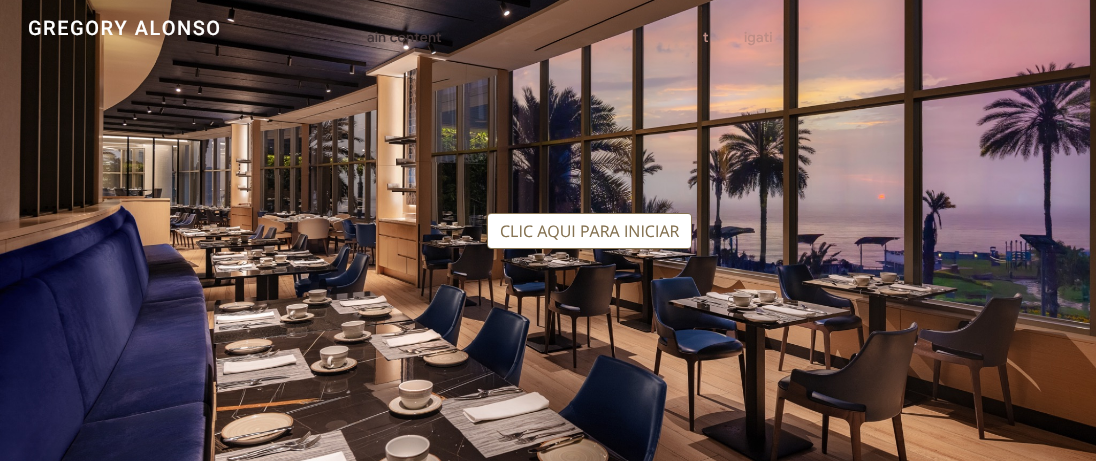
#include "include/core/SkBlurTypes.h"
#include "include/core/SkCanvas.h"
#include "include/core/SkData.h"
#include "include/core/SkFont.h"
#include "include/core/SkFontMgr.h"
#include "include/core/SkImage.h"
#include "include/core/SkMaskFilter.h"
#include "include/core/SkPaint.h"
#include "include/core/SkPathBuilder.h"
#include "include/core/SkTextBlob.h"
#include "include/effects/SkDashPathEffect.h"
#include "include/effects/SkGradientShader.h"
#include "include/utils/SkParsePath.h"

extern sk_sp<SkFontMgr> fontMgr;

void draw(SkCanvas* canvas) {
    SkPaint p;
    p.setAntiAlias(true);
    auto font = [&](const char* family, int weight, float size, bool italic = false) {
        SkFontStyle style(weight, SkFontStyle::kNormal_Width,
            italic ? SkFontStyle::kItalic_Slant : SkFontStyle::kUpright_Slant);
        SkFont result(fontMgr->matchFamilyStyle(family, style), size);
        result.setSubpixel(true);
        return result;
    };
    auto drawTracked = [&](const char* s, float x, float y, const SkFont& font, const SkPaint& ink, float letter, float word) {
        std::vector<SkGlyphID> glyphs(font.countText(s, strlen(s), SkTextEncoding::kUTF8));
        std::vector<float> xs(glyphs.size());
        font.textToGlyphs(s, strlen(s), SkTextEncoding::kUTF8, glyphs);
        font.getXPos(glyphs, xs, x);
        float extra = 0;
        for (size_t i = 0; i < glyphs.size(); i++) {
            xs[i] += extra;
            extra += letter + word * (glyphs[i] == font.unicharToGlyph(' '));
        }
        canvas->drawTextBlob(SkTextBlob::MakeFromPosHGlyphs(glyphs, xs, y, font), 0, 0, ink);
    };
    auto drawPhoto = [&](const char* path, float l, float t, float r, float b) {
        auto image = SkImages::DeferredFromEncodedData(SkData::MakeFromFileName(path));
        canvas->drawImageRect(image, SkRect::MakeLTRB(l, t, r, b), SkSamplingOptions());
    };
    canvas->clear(0xFFFFFFFF);
    drawPhoto("media/1.png", 0, 0, 1096, 461);
    auto font1 = font("Roboto", 500, 20);
    p.setColor(0xFFFFFFFF);
    drawTracked("GREGORY ALONSO", 28, 35, font1, p, 1.5f, 0);
    p.setStyle(SkPaint::kStroke_Style);
    p.setStrokeWidth(1);
    p.setColor(0xFF857251);
    canvas->drawRoundRect(SkRect::MakeLTRB(487.5f, 213.5f, 691.5f, 248.5f), 3.5f, 3.5f, p);
    p.setStyle(SkPaint::kFill_Style);
    p.setColor(0xFFFFFFFF);
    canvas->drawRoundRect(SkRect::MakeLTRB(488, 214, 691, 248), 3, 3, p);
    auto font2 = font("Open Sans", 400, 16);
    p.setColor(0xFF857251);
    canvas->drawString("CLIC AQUI PARA INICIAR", 500, 237, font2, p);
    auto font3 = font("Google Sans", 500, 14);
    p.setColor(0xFF413436);
    drawTracked("ain content", 367, 42, font3, p, 0.1f, 0);
    p.setColor(0xFFBD8C84);
    drawTracked("t", 703, 42, font3, p, 0.1f, 0);
    drawTracked("igati", 744, 42, font3, p, 0.1f, 0);
}
